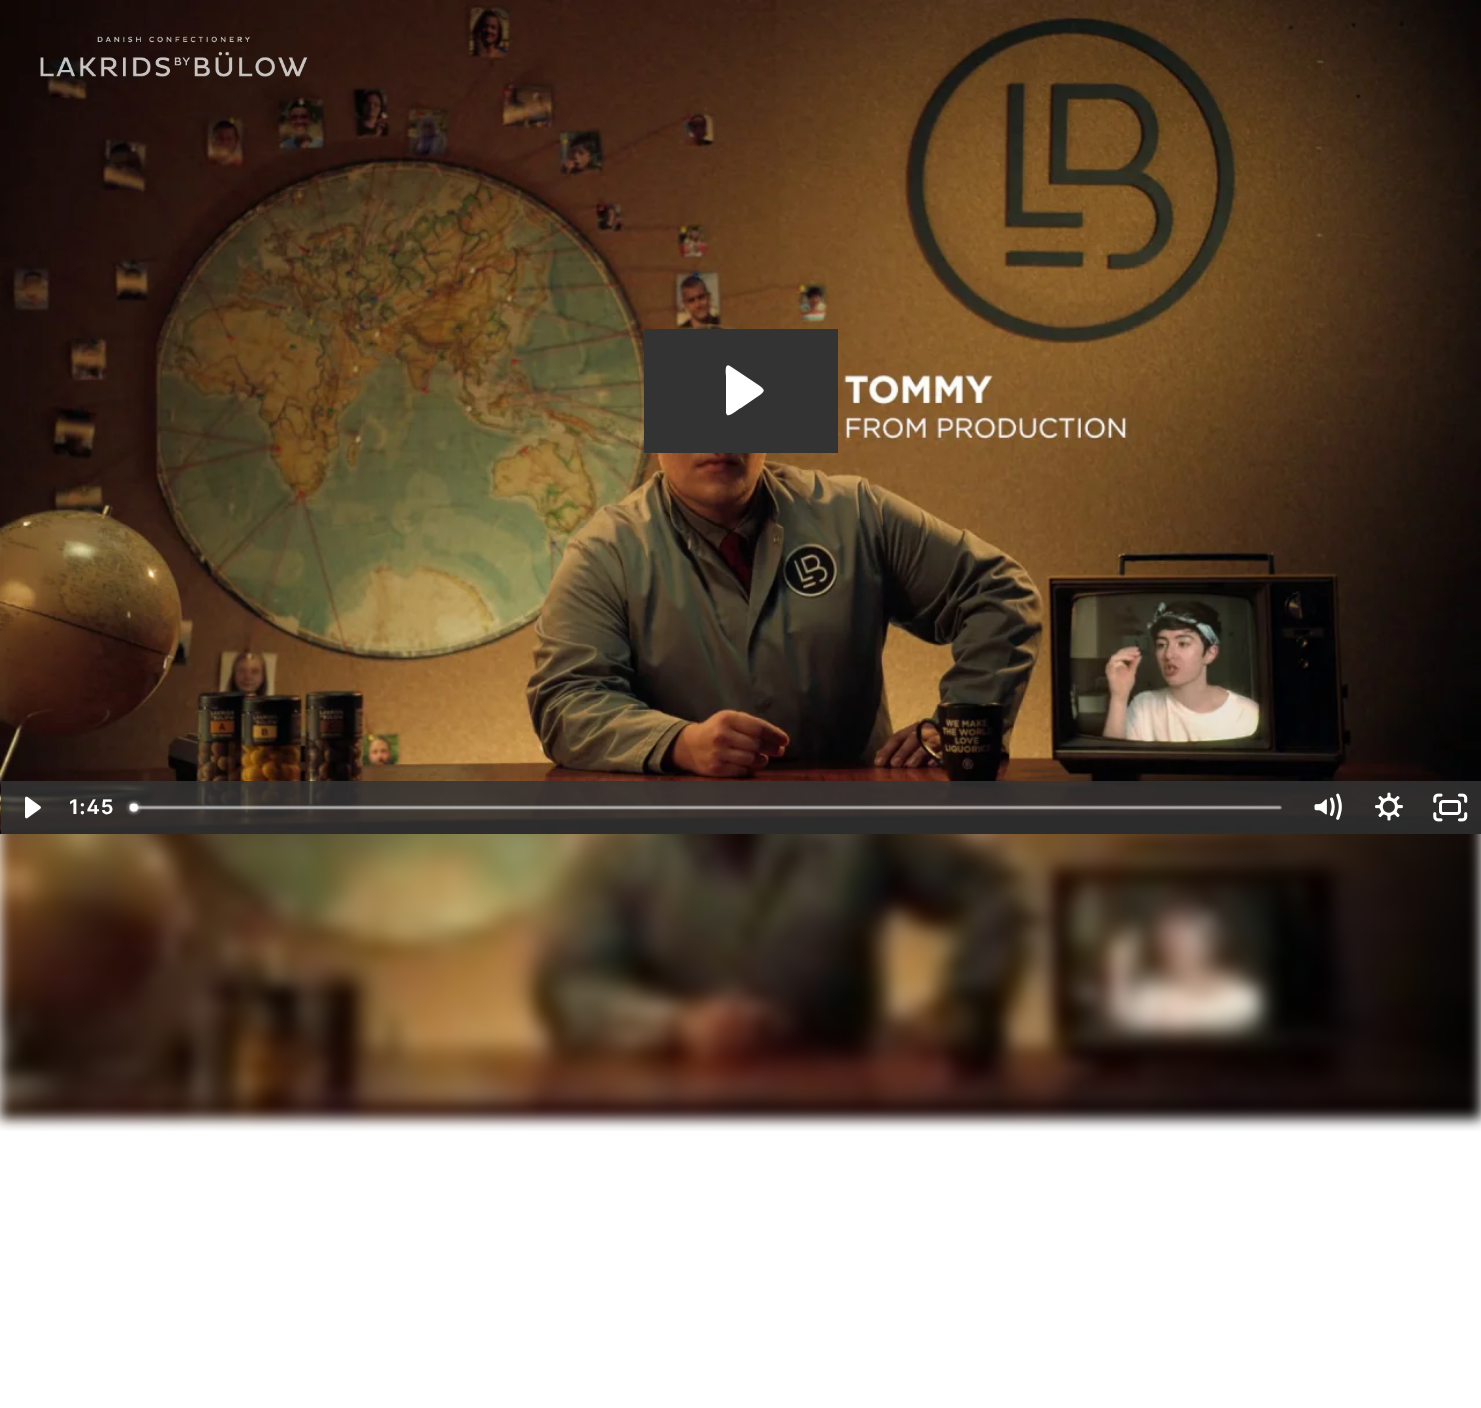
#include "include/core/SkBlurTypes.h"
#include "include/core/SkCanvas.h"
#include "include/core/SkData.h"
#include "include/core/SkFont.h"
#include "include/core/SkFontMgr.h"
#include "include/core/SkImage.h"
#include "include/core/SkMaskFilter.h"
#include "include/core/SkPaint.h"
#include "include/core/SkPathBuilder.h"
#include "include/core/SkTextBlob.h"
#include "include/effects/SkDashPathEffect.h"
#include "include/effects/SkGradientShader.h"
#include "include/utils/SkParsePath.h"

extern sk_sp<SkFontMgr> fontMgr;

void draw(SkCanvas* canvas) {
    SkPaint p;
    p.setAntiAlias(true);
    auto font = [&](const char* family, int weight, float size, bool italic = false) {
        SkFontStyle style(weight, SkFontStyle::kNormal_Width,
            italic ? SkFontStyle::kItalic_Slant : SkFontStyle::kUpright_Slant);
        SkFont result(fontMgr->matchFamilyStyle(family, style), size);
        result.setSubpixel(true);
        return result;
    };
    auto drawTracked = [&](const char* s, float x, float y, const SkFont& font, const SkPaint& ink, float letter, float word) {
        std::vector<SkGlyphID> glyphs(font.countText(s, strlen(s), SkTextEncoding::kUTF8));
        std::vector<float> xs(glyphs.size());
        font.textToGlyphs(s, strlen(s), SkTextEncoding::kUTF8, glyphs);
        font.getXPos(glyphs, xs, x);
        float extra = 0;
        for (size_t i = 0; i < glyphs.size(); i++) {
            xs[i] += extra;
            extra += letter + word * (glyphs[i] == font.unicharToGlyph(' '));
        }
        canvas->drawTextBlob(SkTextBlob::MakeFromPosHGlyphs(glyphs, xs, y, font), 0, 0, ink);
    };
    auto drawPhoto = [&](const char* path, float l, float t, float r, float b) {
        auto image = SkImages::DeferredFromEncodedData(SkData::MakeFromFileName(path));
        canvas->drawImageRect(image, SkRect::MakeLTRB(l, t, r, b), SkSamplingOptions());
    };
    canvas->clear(0xFFFFFFFF);
    p.setColor(0xFF000000);
    canvas->drawRect(SkRect::MakeLTRB(0, 833, 1481, 834), p);
    drawPhoto("media/1.png", 0, 0, 1481, 834);
    drawPhoto("media/2.png", 40, 36, 308, 77);
    p.setColor(0xFF333333);
    canvas->drawRect(SkRect::MakeLTRB(644, 329, 838, 453), p);
    p.setColor(0xFFFFFFFF);
    canvas->drawPath(SkPathBuilder(SkPathFillType::kEvenOdd).moveTo(730, 366).cubicTo(724, 362, 726, 375, 726, 376).lineTo(726, 413).lineTo(727, 415).cubicTo(730, 417, 738, 409, 741, 408).lineTo(757, 397).cubicTo(766, 391, 766, 390, 757, 384).close().detach(), p);
    p.setColor(0xD9333333);
    canvas->drawRect(SkRect::MakeLTRB(1, 781, 1481, 834), p);
    drawPhoto("media/3.png", 25, 796, 41, 819);
    auto font1 = font("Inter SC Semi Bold", 600, 20);
    p.setColor(0xFFFFFFFF);
    drawTracked("1:45", 69, 814, font1, p, 1, 0);
    drawPhoto("media/4.png", 125, 799, 1282, 816);
    drawPhoto("media/5.png", 1314, 793, 1342, 820);
    drawPhoto("media/6.png", 1375, 792, 1403, 821);
    drawPhoto("media/7.png", 1433, 793, 1468, 822);
    drawPhoto("media/8.png", 0, 834, 1481, 1131);
}
